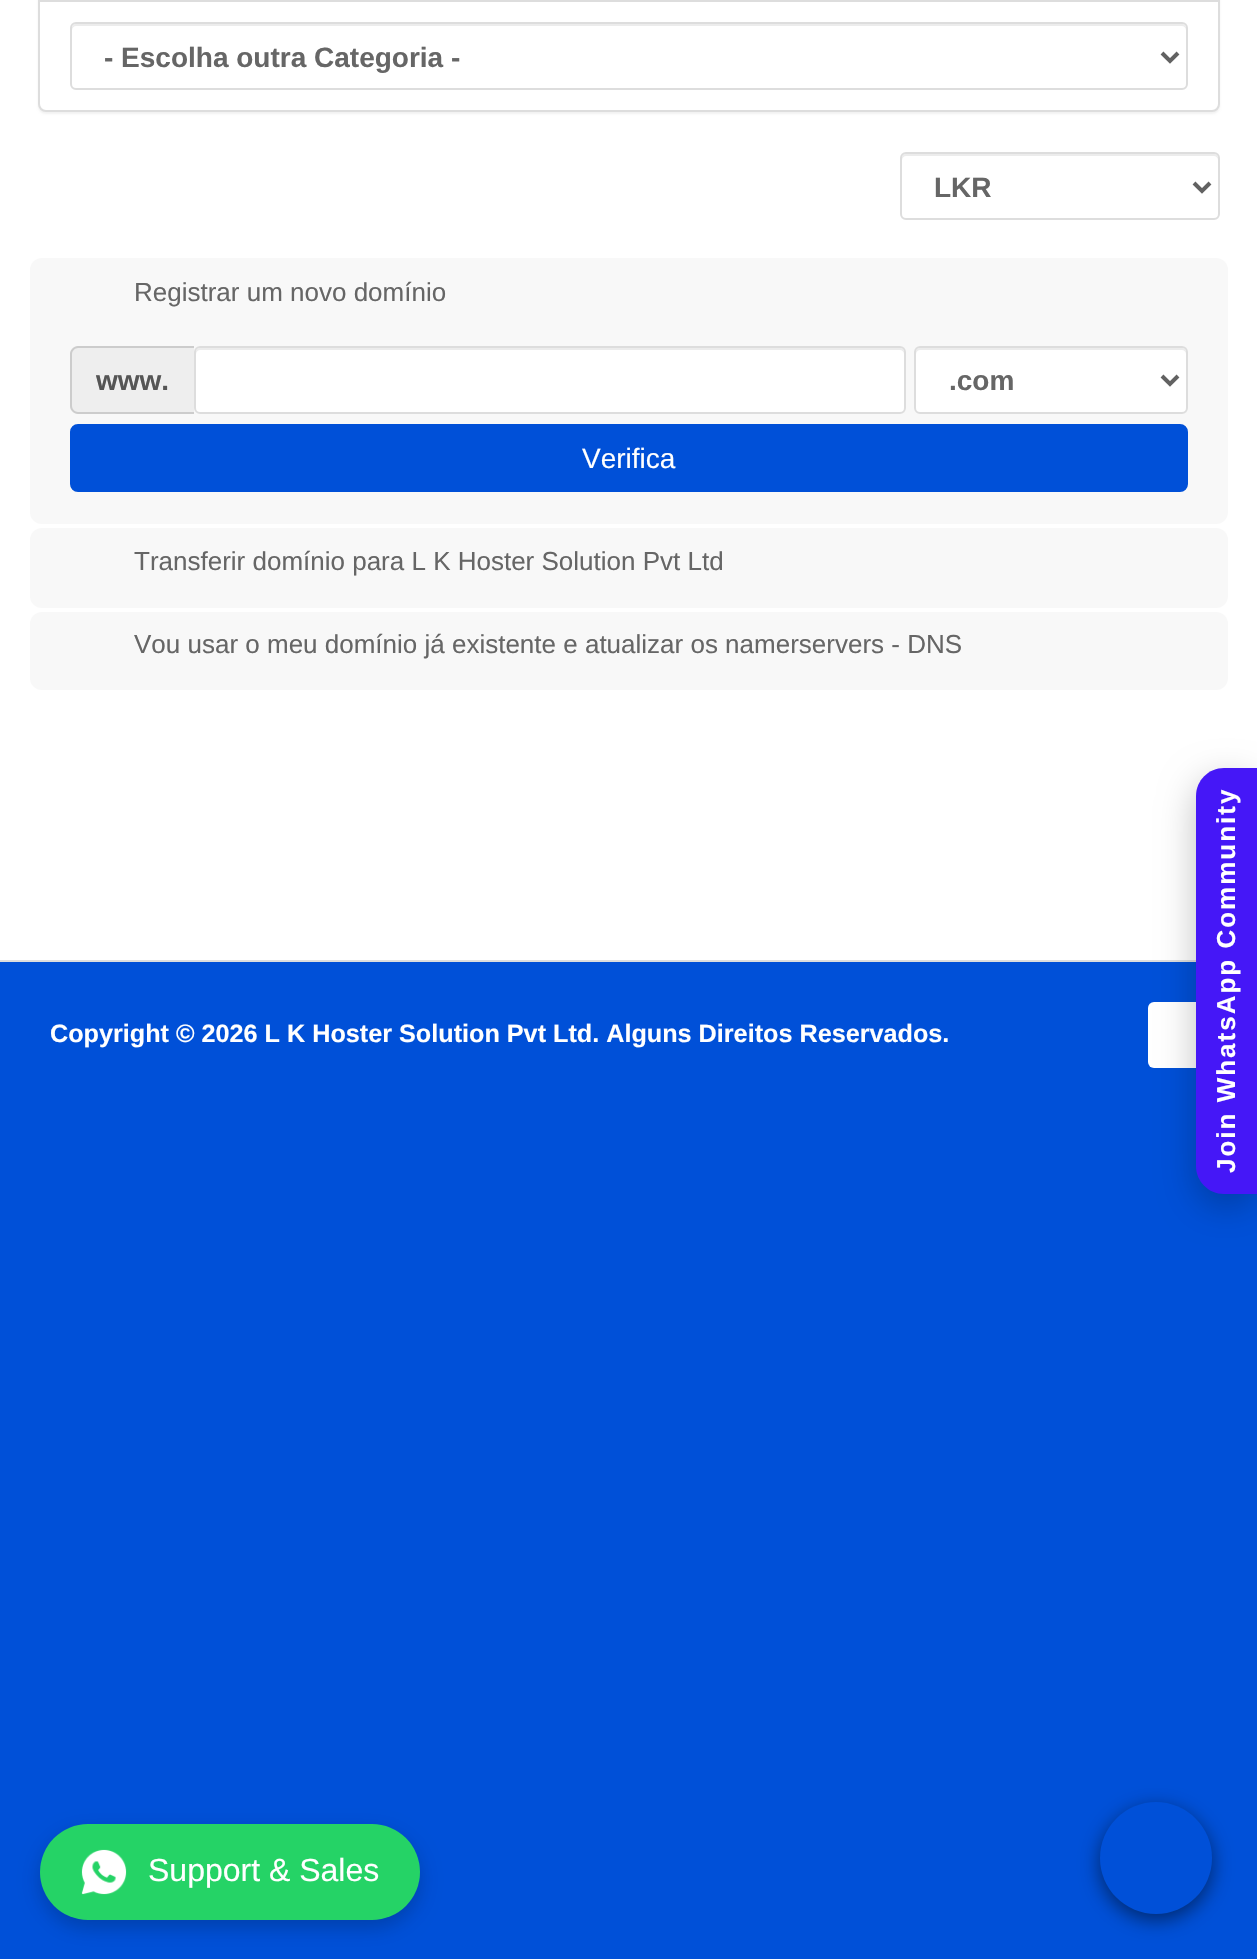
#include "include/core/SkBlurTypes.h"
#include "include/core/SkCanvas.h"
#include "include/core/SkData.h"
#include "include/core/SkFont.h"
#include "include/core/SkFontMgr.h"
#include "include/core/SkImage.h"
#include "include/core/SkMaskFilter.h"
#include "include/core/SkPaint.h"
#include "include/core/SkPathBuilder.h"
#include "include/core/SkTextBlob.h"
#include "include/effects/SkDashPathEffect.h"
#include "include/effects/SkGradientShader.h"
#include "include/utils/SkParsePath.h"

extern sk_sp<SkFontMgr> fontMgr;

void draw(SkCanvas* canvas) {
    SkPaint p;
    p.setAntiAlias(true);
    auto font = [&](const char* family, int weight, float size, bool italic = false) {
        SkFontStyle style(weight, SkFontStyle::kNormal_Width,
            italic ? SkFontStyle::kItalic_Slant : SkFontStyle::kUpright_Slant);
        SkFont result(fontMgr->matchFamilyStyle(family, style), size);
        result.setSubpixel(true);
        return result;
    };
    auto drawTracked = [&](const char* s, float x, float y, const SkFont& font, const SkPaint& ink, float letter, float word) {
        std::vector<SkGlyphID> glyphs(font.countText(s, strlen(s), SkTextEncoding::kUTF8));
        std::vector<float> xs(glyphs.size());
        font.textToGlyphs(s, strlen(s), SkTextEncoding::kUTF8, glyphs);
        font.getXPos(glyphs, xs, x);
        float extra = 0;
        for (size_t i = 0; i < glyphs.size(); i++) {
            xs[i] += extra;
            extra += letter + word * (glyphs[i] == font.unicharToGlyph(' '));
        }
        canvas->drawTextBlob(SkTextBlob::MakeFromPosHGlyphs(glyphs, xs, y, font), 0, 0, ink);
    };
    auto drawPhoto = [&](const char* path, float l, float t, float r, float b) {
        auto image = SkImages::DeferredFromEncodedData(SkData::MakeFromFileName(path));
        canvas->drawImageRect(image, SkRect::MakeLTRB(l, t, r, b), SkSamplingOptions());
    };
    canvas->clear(0xFFFFFFFF);
    p.setColor(0x0D000000);
    p.setMaskFilter(SkMaskFilter::MakeBlur(kNormal_SkBlurStyle, 1));
    canvas->drawRoundRect(SkRect::MakeLTRB(38, -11, 1220, 114), 8, 8, p);
    p.setMaskFilter(nullptr);
    p.setColor(0xFFFFFFFF);
    canvas->drawRoundRect(SkRect::MakeLTRB(39, -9, 1219, 111), 7, 7, p);
    p.setStyle(SkPaint::kStroke_Style);
    p.setStrokeWidth(2);
    p.setColor(0xFFDDDDDD);
    canvas->drawRoundRect(SkRect::MakeLTRB(39, -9, 1219, 111), 7, 7, p);
    p.setStyle(SkPaint::kFill_Style);
    canvas->drawRect(SkRect::MakeLTRB(40, 0, 1218, 2), p);
    p.setColor(0xFFECECEC);
    canvas->drawPath(SkPathBuilder().moveTo(76, 26).lineTo(1182, 26).cubicTo(1184, 26, 1186, 28, 1186, 30).lineTo(1186, 28).cubicTo(1186, 26, 1184, 24, 1182, 24).lineTo(76, 24).cubicTo(74, 24, 72, 26, 72, 28).lineTo(72, 30).cubicTo(72, 28, 74, 26, 76, 26).close().detach(), p);
    p.setStyle(SkPaint::kStroke_Style);
    p.setColor(0xFFDDDDDD);
    canvas->drawRoundRect(SkRect::MakeLTRB(71, 23, 1187, 89), 5, 5, p);
    p.setStrokeWidth(4);
    p.setColor(0xFF626262);
    canvas->drawPath(SkPathBuilder().moveTo(1162, 53).lineTo(1170, 61).lineTo(1178, 53).detach(), p);
    auto font1 = font("Liberation Sans", 700, 28);
    p.setStyle(SkPaint::kFill_Style);
    p.setColor(0xFF666666);
    canvas->drawString("- Escolha outra Categoria -", 104, 67, font1, p);
    p.setColor(0xFFECECEC);
    canvas->drawPath(SkPathBuilder().moveTo(906, 156).lineTo(1214, 156).cubicTo(1216, 156, 1218, 158, 1218, 160).cubicTo(1218, 157, 1218, 154, 1214, 154).lineTo(906, 154).cubicTo(902, 154, 902, 157, 902, 160).cubicTo(902, 158, 904, 156, 906, 156).close().detach(), p);
    p.setStyle(SkPaint::kStroke_Style);
    p.setStrokeWidth(2);
    p.setColor(0xFFDDDDDD);
    canvas->drawRoundRect(SkRect::MakeLTRB(901, 153, 1219, 219), 5, 5, p);
    p.setStrokeWidth(4);
    p.setColor(0xFF626262);
    canvas->drawPath(SkPathBuilder().moveTo(1194, 183).lineTo(1202, 191).lineTo(1210, 183).detach(), p);
    p.setStyle(SkPaint::kFill_Style);
    p.setColor(0xFF666666);
    canvas->drawString("LKR", 934, 197, font1, p);
    p.setColor(0xFFF8F8F8);
    canvas->drawRoundRect(SkRect::MakeLTRB(30, 258, 1228, 524), 12, 12, p);
    auto font2 = font("Liberation Sans", 400, 26);
    p.setColor(0xFF666666);
    canvas->drawString("Registrar um novo domínio", 134, 301, font2, p);
    p.setColor(0xFFEEEEEE);
    canvas->drawPath(SkPathBuilder().moveTo(78, 346).lineTo(194, 346).lineTo(194, 414).lineTo(78, 414).cubicTo(73.5f, 414, 70, 410.5f, 70, 406).lineTo(70, 354).cubicTo(70, 349.5f, 73.5f, 346, 78, 346).close().detach(), p);
    p.setColor(0xFFCCCCCC);
    canvas->drawPath(SkPathBuilder(SkPathFillType::kEvenOdd).moveTo(78, 346).lineTo(194, 346).lineTo(194, 414).lineTo(78, 414).cubicTo(74, 414, 70, 410, 70, 406).lineTo(70, 354).cubicTo(70, 350, 74, 346, 78, 346).close().moveTo(78, 348).lineTo(194, 348).lineTo(194, 412).lineTo(78, 412).cubicTo(75, 412, 72, 409, 72, 406).lineTo(72, 354).cubicTo(72, 351, 75, 348, 78, 348).close().detach(), p);
    p.setColor(0xFF555555);
    canvas->drawString("www.", 96, 390, font1, p);
    p.setColor(0xFFFFFFFF);
    canvas->drawRoundRect(SkRect::MakeLTRB(194, 346, 906, 414), 6, 6, p);
    p.setColor(0xFFECECEC);
    canvas->drawPath(SkPathBuilder().moveTo(200, 350).lineTo(900, 350).cubicTo(902, 350, 904, 352, 904, 354).cubicTo(904, 351, 904, 348, 900, 348).lineTo(200, 348).cubicTo(196, 348, 196, 351, 196, 354).cubicTo(196, 352, 198, 350, 200, 350).close().detach(), p);
    p.setStyle(SkPaint::kStroke_Style);
    p.setStrokeWidth(2);
    p.setColor(0xFFDDDDDD);
    canvas->drawRoundRect(SkRect::MakeLTRB(195, 347, 905, 413), 5, 5, p);
    p.setStyle(SkPaint::kFill_Style);
    p.setColor(0xFFFFFFFF);
    canvas->drawRoundRect(SkRect::MakeLTRB(914, 346, 1188, 414), 6, 6, p);
    p.setColor(0xFFECECEC);
    canvas->drawPath(SkPathBuilder().moveTo(920, 350).lineTo(1182, 350).cubicTo(1184, 350, 1186, 352, 1186, 354).cubicTo(1186, 351, 1186, 348, 1182, 348).lineTo(920, 348).cubicTo(916, 348, 916, 351, 916, 354).cubicTo(916, 352, 918, 350, 920, 350).close().detach(), p);
    p.setStyle(SkPaint::kStroke_Style);
    p.setColor(0xFFDDDDDD);
    canvas->drawRoundRect(SkRect::MakeLTRB(915, 347, 1187, 413), 5, 5, p);
    p.setStrokeWidth(4);
    p.setColor(0xFF626262);
    canvas->drawPath(SkPathBuilder().moveTo(1162, 376).lineTo(1170, 384).lineTo(1178, 376).detach(), p);
    p.setStyle(SkPaint::kFill_Style);
    p.setColor(0xFF666666);
    canvas->drawString(".com", 949, 390, font1, p);
    p.setColor(0xFF0050D8);
    canvas->drawRoundRect(SkRect::MakeLTRB(71, 425, 1187, 491), 7, 7, p);
    p.setStyle(SkPaint::kStroke_Style);
    p.setStrokeWidth(2);
    canvas->drawRoundRect(SkRect::MakeLTRB(71, 425, 1187, 491), 7, 7, p);
    auto font3 = font("Liberation Sans", 400, 28);
    p.setStyle(SkPaint::kFill_Style);
    p.setColor(0xFFFFFFFF);
    canvas->drawString("Verifica", 582, 468, font3, p);
    p.setColor(0xFFF8F8F8);
    canvas->drawRoundRect(SkRect::MakeLTRB(30, 528, 1228, 608), 12, 12, p);
    p.setColor(0xFF666666);
    canvas->drawString("Transferir domínio para L K Hoster Solution Pvt Ltd", 134, 570, font2, p);
    p.setColor(0xFFF8F8F8);
    canvas->drawRoundRect(SkRect::MakeLTRB(30, 612, 1228, 690), 12, 12, p);
    p.setColor(0xFF666666);
    canvas->drawString("Vou usar o meu domínio já existente e atualizar os namerservers - DNS", 134, 653, font2, p);
    p.setColor(0xFF0050D8);
    canvas->drawRect(SkRect::MakeLTRB(0, 962, 1257, 1959), p);
    p.setColor(0xFFDDDDDD);
    canvas->drawRect(SkRect::MakeLTRB(0, 960, 1196, 962), p);
    auto font4 = font("Liberation Sans", 700, 25.2f);
    p.setColor(0xFFFFFFFF);
    canvas->drawString("Copyright © 2026 L K Hoster Solution Pvt Ltd. Alguns Direitos Reservados.", 50, 1042, font4, p);
    canvas->drawRoundRect(SkRect::MakeLTRB(1148, 1002, 1208, 1068), 6, 6, p);
    p.setColor(0x40000000);
    p.setMaskFilter(SkMaskFilter::MakeBlur(kNormal_SkBlurStyle, 18));
    canvas->drawRoundRect(SkRect::MakeLTRB(1196, 780, 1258, 1206), 28, 28, p);
    p.setMaskFilter(nullptr);
    p.setColor(0xFF4517F7);
    canvas->drawPath(SkPathBuilder().moveTo(1224, 768).lineTo(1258, 768).lineTo(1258, 1194).lineTo(1224, 1194).cubicTo(1208.5f, 1194, 1196, 1181.5f, 1196, 1166).lineTo(1196, 796).cubicTo(1196, 780.5f, 1208.5f, 768, 1224, 768).close().detach(), p);
    auto font5 = font("Liberation Sans", 700, 26);
    p.setColor(0xFFFFFFFF);
    canvas->save();
    canvas->rotate(-90, 1235, 1173);
    drawTracked("Join WhatsApp Community", 1235, 1173, font5, p, 2, 0);
    canvas->restore();
    p.setColor(0x33000000);
    p.setMaskFilter(SkMaskFilter::MakeBlur(kNormal_SkBlurStyle, 10));
    canvas->drawRoundRect(SkRect::MakeLTRB(40, 1832, 420, 1928), 48, 48, p);
    p.setMaskFilter(nullptr);
    p.setColor(0xFF25D366);
    canvas->drawRoundRect(SkRect::MakeLTRB(40, 1824, 420, 1920), 48, 48, p);
    drawPhoto("media/1.png", 81, 1849, 127, 1895);
    auto font6 = font("Liberation Sans", 400, 32);
    p.setColor(0xFFFFFFFF);
    canvas->drawString("Support & Sales", 148, 1881, font6, p);
    p.setColor(0x80000000);
    p.setMaskFilter(SkMaskFilter::MakeBlur(kNormal_SkBlurStyle, 10));
    canvas->drawRoundRect(SkRect::MakeLTRB(1100, 1808, 1212, 1920), 56, 56, p);
    p.setMaskFilter(nullptr);
    p.setColor(0xFF0050D8);
    canvas->drawCircle(1156, 1858, 56, p);
}
